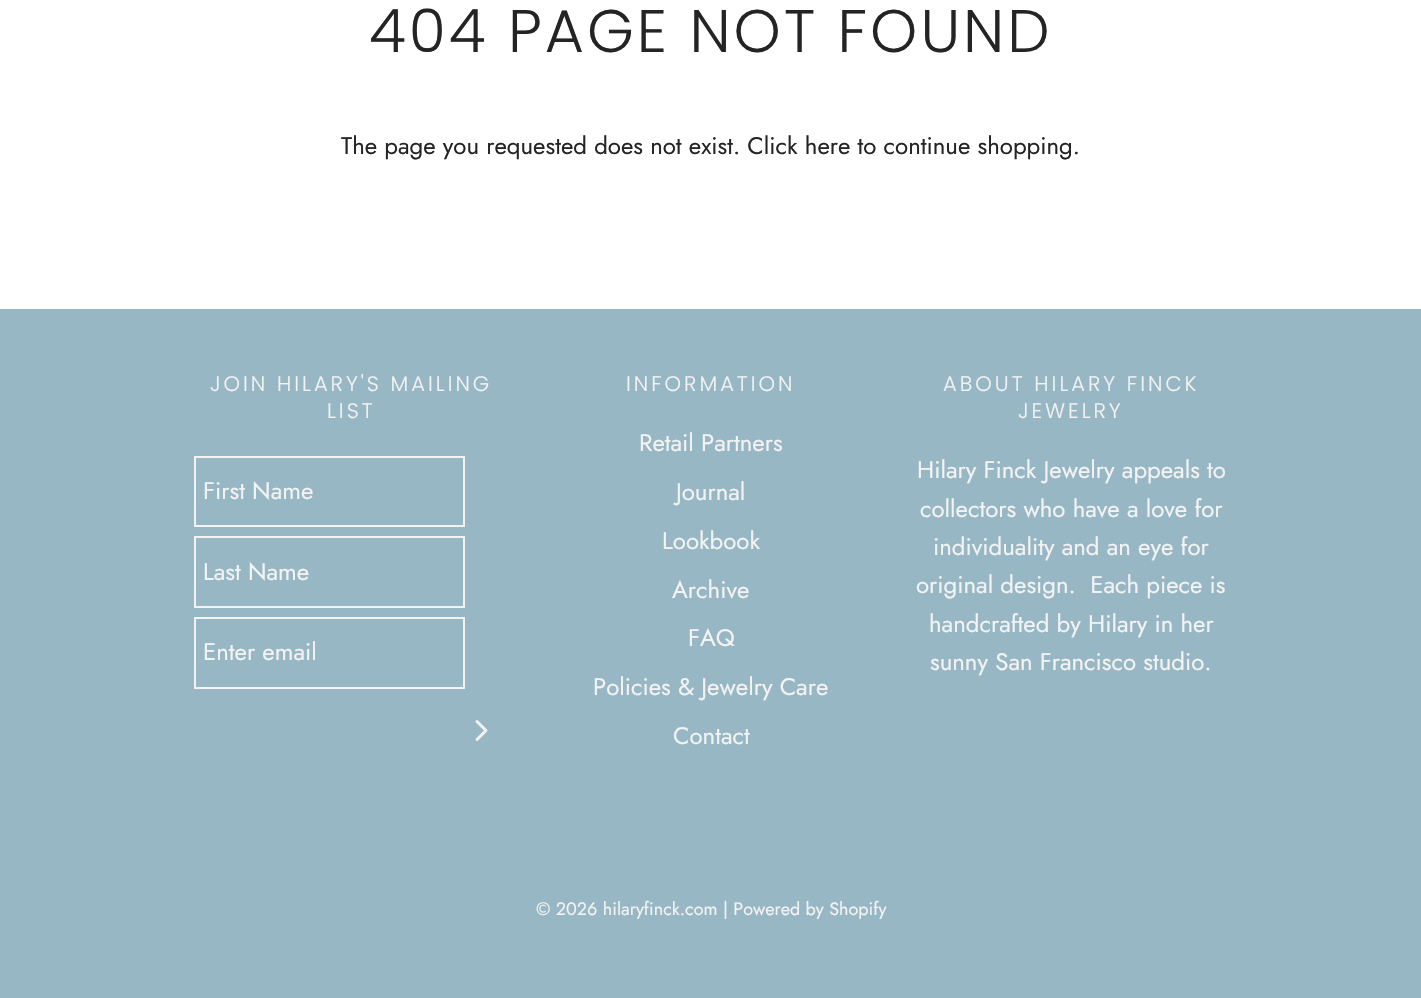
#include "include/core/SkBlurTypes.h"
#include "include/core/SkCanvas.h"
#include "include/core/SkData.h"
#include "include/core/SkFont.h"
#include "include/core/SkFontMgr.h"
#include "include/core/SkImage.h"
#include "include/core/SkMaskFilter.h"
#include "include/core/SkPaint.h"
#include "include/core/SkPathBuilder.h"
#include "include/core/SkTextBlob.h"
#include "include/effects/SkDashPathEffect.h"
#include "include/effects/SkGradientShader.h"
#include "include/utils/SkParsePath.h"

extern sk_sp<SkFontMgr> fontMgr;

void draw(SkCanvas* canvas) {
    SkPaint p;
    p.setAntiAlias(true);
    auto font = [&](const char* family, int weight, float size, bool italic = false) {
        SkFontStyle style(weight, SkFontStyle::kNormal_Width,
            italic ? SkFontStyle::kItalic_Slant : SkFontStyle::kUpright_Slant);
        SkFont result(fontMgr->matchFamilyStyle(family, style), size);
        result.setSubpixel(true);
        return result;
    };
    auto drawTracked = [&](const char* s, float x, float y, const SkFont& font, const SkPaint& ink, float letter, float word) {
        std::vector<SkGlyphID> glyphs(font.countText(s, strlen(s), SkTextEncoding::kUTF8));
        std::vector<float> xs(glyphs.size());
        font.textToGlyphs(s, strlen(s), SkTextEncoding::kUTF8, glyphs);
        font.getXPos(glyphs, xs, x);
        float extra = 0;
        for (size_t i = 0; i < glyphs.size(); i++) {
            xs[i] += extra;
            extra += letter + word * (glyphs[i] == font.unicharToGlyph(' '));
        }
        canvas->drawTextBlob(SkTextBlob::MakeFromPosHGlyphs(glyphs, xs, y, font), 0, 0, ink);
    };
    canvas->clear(0xFFFFFFFF);
    auto font1 = font("Poppins", 300, 60);
    p.setColor(0xFF242424);
    drawTracked("404 PAGE NOT FOUND", 369, 52, font1, p, 3, 0);
    auto font2 = font("Jost", 400, 24);
    canvas->drawString("The page you requested does not exist. Click here to continue shopping.", 341, 154, font2, p);
    p.setColor(0xFF98B7C5);
    canvas->drawRect(SkRect::MakeLTRB(0, 309, 1421, 998), p);
    auto font3 = font("Poppins", 300, 21);
    p.setColor(0xFFF3F3F3);
    drawTracked("JOIN HILARY'S MAILING", 210, 391, font3, p, 3, 0);
    drawTracked("LIST", 327, 418, font3, p, 3, 0);
    p.setStyle(SkPaint::kStroke_Style);
    p.setStrokeWidth(2);
    canvas->drawRect(SkRect::MakeLTRB(195, 457, 464, 526), p);
    p.setStyle(SkPaint::kFill_Style);
    canvas->drawString("First Name", 203, 499, font2, p);
    p.setStyle(SkPaint::kStroke_Style);
    canvas->drawRect(SkRect::MakeLTRB(195, 537, 464, 607), p);
    p.setStyle(SkPaint::kFill_Style);
    canvas->drawString("Last Name", 203, 580, font2, p);
    p.setStyle(SkPaint::kStroke_Style);
    canvas->drawRect(SkRect::MakeLTRB(195, 618, 464, 688), p);
    p.setStyle(SkPaint::kFill_Style);
    canvas->drawString("Enter email", 203, 660, font2, p);
    p.setStyle(SkPaint::kStroke_Style);
    p.setStrokeWidth(3);
    p.setStrokeCap(SkPaint::kRound_Cap);
    p.setStrokeJoin(SkPaint::kRound_Join);
    canvas->drawPath(SkPathBuilder().moveTo(477, 739.5f).lineTo(486, 730.5f).lineTo(477, 721.5f).detach(), p);
    p.setStyle(SkPaint::kFill_Style);
    drawTracked("INFORMATION", 626, 391, font3, p, 3, 0);
    {
        const struct { const char* s; float x, y; } items[] = {
            {"Retail Partners", 639, 451},
            {"Journal", 676, 500},
            {"Lookbook", 662, 549},
            {"Archive", 672, 598},
            {"FAQ", 688, 646},
            {"Policies & Jewelry Care", 593, 695},
            {"Contact", 673, 744},
        };
        for (auto [s, x, y] : items) {
            canvas->drawString(s, x, y, font2, p);
        }
    }
    drawTracked("ABOUT HILARY FINCK", 943, 391, font3, p, 3, 0);
    drawTracked("JEWELRY", 1018, 418, font3, p, 3, 0);
    {
        const struct { const char* s; float x, y; } items[] = {
            {"Hilary Finck Jewelry appeals to", 917, 478},
            {"collectors who have a love for", 920, 517},
            {"individuality and an eye for", 933, 555},
            {"original design.  Each piece is", 916, 593},
            {"handcrafted by Hilary in her", 929, 632},
            {"sunny San Francisco studio.", 930, 670},
        };
        for (auto [s, x, y] : items) {
            canvas->drawString(s, x, y, font2, p);
        }
    }
    auto font4 = font("Jost", 400, 18);
    canvas->drawString("© 2026 hilaryfinck.com | Powered by Shopify", 536, 915, font4, p);
}
